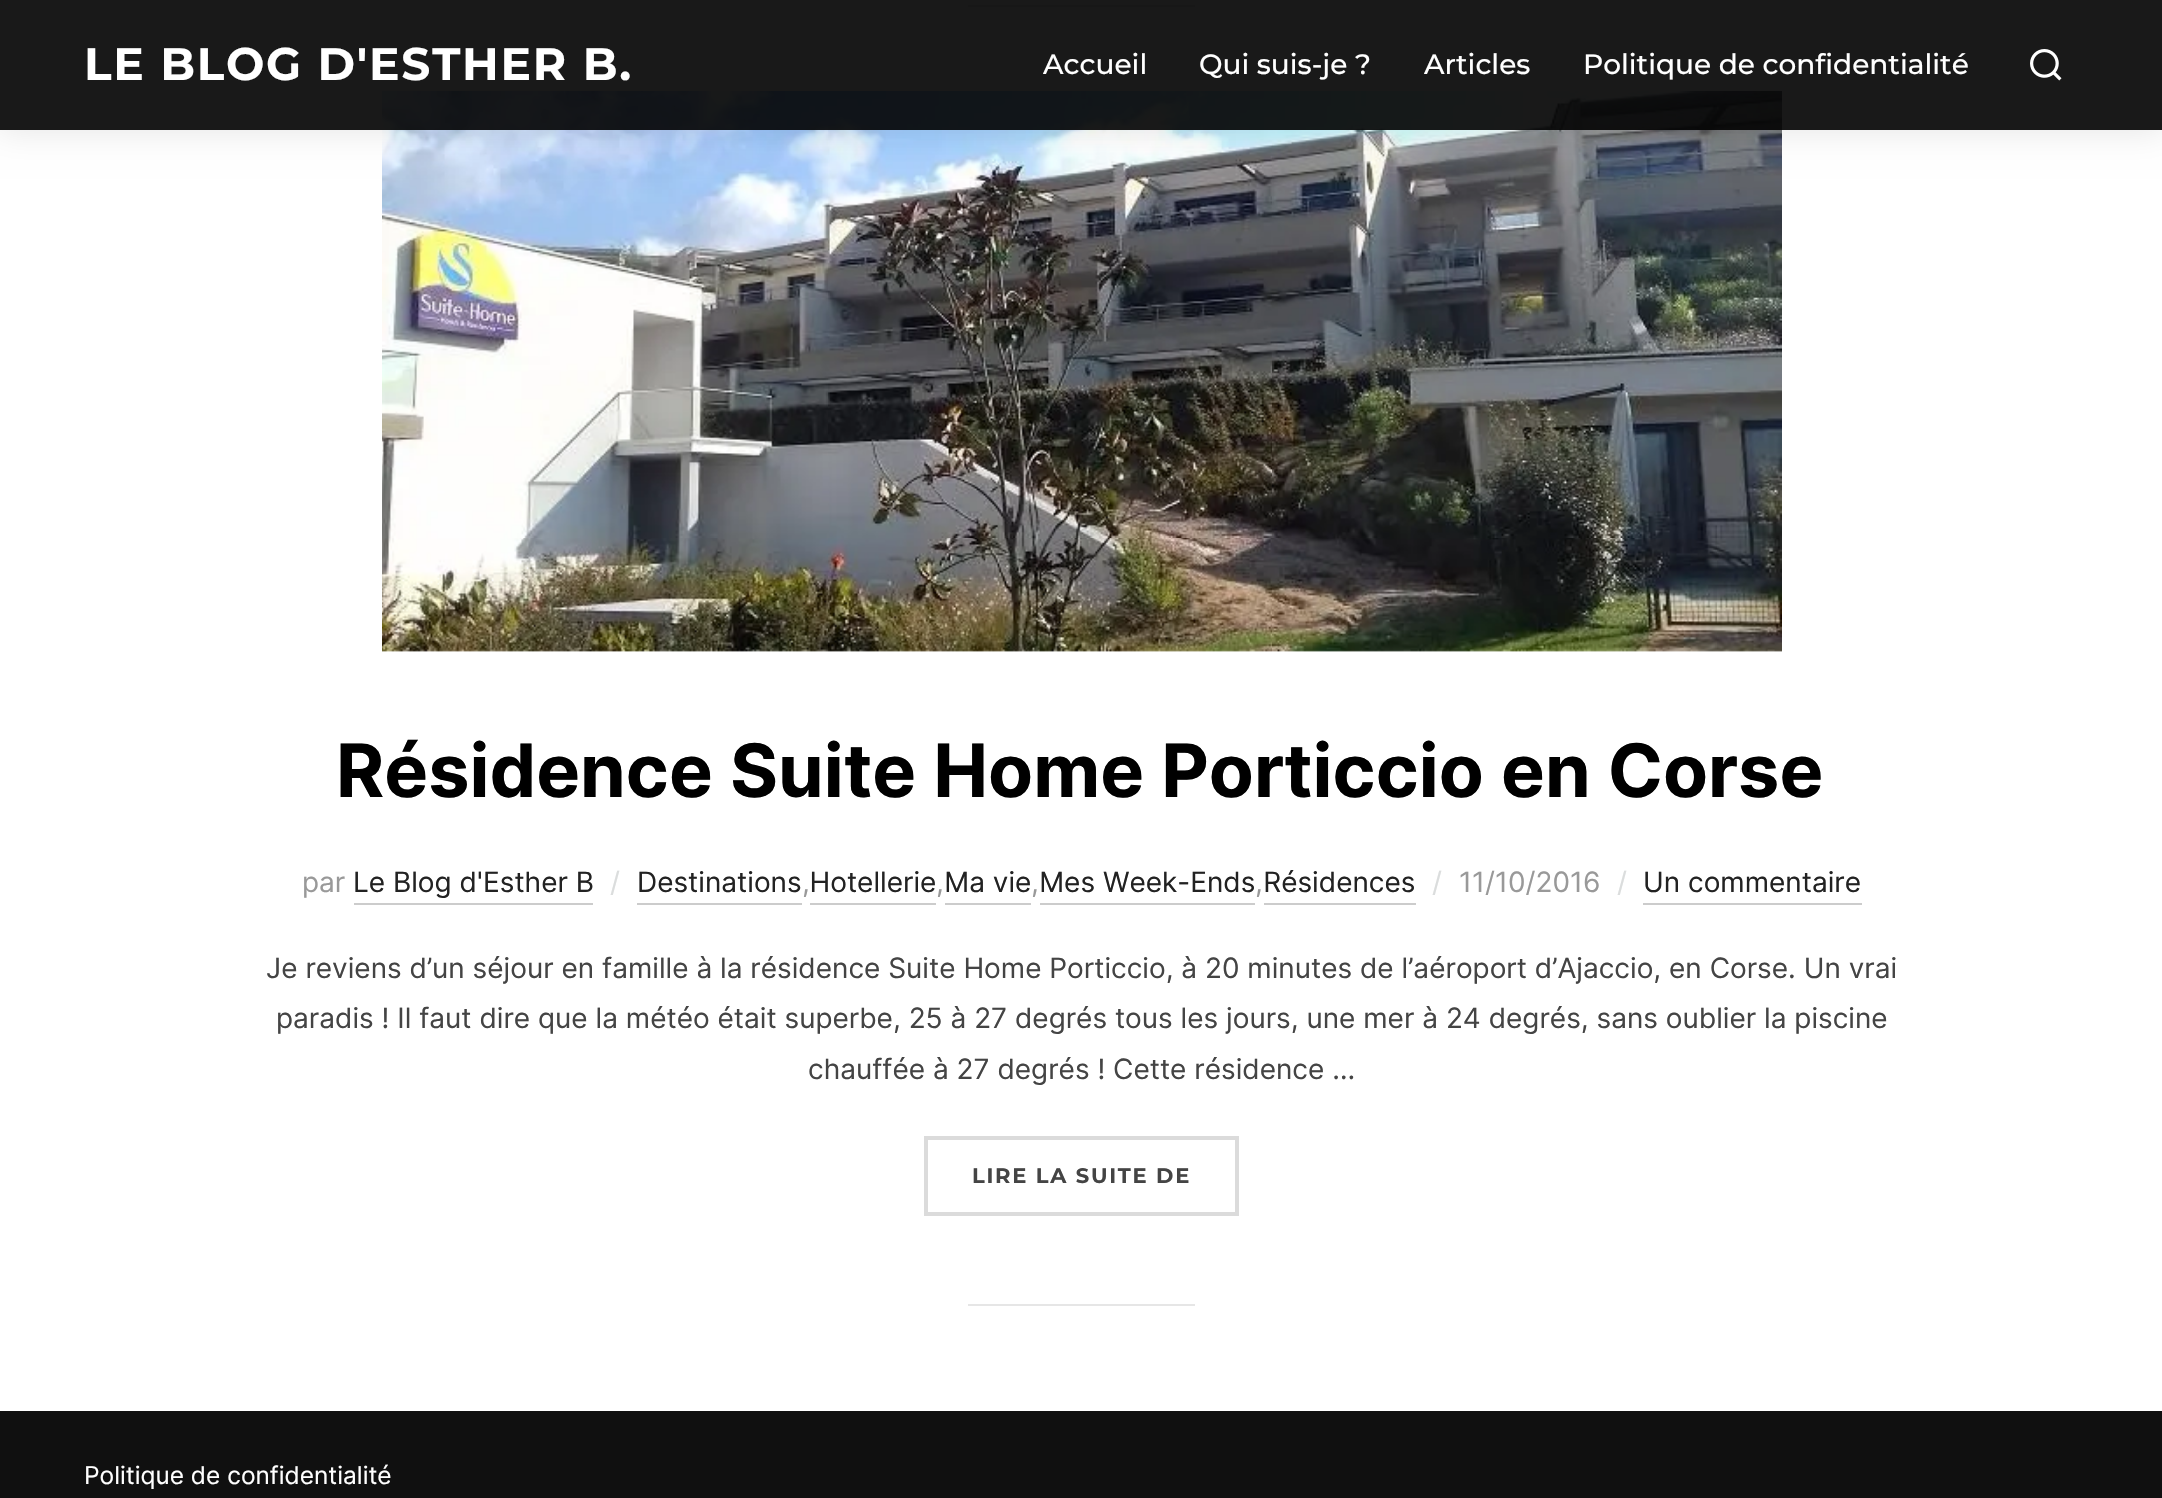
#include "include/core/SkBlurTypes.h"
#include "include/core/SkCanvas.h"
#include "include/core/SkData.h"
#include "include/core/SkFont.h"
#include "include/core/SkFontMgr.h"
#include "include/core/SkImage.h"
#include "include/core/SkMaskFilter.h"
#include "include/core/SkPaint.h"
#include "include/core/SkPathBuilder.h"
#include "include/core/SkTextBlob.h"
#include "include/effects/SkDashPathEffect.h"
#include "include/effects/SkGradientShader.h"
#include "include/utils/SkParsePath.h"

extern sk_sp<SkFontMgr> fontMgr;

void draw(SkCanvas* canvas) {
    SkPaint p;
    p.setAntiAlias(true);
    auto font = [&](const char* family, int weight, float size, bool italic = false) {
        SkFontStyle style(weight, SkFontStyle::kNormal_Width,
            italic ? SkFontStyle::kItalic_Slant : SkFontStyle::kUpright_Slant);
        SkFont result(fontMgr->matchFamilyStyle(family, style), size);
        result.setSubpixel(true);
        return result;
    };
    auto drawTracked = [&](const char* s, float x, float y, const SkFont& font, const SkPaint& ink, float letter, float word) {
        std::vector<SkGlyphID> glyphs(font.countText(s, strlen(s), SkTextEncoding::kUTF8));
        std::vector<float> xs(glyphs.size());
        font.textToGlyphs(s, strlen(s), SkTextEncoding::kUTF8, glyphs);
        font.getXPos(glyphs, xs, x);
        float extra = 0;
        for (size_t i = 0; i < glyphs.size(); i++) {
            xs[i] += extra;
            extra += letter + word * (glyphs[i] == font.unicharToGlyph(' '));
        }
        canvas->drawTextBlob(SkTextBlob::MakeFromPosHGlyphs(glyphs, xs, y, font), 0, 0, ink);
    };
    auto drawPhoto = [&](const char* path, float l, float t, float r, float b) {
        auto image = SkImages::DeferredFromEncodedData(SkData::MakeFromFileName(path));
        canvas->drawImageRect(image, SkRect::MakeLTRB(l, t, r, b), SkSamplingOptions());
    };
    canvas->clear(0xFFFFFFFF);
    p.setColor(0xFFE6E6E6);
    canvas->drawRect(SkRect::MakeLTRB(968, 5, 1195, 7), p);
    drawPhoto("media/2.png", 382, 91, 1782, 652);
    canvas->save();
    canvas->clipPath(SkPathBuilder(SkPathFillType::kEvenOdd).moveTo(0, 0).lineTo(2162, 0).lineTo(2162, 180).lineTo(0, 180).close().moveTo(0, 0).lineTo(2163, 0).lineTo(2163, 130).lineTo(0, 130).close().detach(), true);
    p.setColor(0x1A000000);
    p.setMaskFilter(SkMaskFilter::MakeBlur(kNormal_SkBlurStyle, 16));
    canvas->drawRect(SkRect::MakeLTRB(-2, -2, 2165, 131), p);
    p.setMaskFilter(nullptr);
    canvas->restore();
    p.setColor(0xE6000000);
    canvas->drawRect(SkRect::MakeLTRB(0, 0, 2162, 130), p);
    auto font1 = font("Montserrat", 700, 45.5f);
    p.setColor(0xFFFFFFFF);
    drawTracked("LE BLOG D'ESTHER B.", 84, 80, font1, p, 1.75f, 0);
    auto font2 = font("Montserrat", 500, 28);
    {
        const struct { const char* s; float x, y; } items[] = {
            {"Accueil", 1043, 74},
            {"Qui suis-je ?", 1199, 74},
            {"Articles", 1424, 74},
            {"Politique de confidentialité", 1583, 74},
        };
        for (auto [s, x, y] : items) {
            canvas->drawString(s, x, y, font2, p);
        }
    }
    drawPhoto("media/1.png", 2030, 49, 2062, 81);
    auto font3 = font("Inter", 700, 73.5f);
    p.setColor(0xFF000000);
    canvas->drawString("Résidence Suite Home Porticcio en Corse", 336, 797, font3, p);
    auto font4 = font("Inter", 400, 28);
    p.setColor(0xFF999999);
    canvas->drawString("par", 302, 892, font4, p);
    p.setColor(0xFF222222);
    canvas->drawString("Le Blog d'Esther B", 353, 892, font4, p);
    p.setColor(0xFFCCCCCC);
    canvas->drawRect(SkRect::MakeLTRB(354, 903, 593, 905), p);
    p.setColor(0xFFDBDDDD);
    canvas->drawString("/", 610, 892, font4, p);
    p.setColor(0xFF222222);
    canvas->drawString("Destinations Hotellerie Ma vie Mes Week-Ends Résidences", 637, 892, font4, p);
    p.setColor(0xFFDBDDDD);
    canvas->drawString("/", 1432, 892, font4, p);
    p.setColor(0xFF999999);
    canvas->drawString("11/10/2016", 1459, 892, font4, p);
    p.setColor(0xFFDBDDDD);
    canvas->drawString("/", 1617, 892, font4, p);
    p.setColor(0xFF222222);
    canvas->drawString("Un commentaire", 1643, 892, font4, p);
    p.setColor(0xFFCCCCCC);
    canvas->drawRect(SkRect::MakeLTRB(1643, 903, 1862, 905), p);
    p.setColor(0xFF999999);
    canvas->drawString(",", 802, 892, font4, p);
    p.setColor(0xFFCCCCCC);
    canvas->drawRect(SkRect::MakeLTRB(637, 903, 802, 905), p);
    canvas->drawRect(SkRect::MakeLTRB(810, 903, 936, 905), p);
    p.setColor(0xFF999999);
    canvas->drawString(",", 936, 892, font4, p);
    canvas->drawString(",", 1031, 892, font4, p);
    p.setColor(0xFFCCCCCC);
    canvas->drawRect(SkRect::MakeLTRB(945, 903, 1031, 905), p);
    p.setColor(0xFF999999);
    canvas->drawString(",", 1255, 892, font4, p);
    p.setColor(0xFFCCCCCC);
    canvas->drawRect(SkRect::MakeLTRB(1040, 903, 1255, 905), p);
    canvas->drawRect(SkRect::MakeLTRB(1264, 903, 1416, 905), p);
    p.setColor(0xFF444444);
    {
        const struct { const char* s; float x, y; } items[] = {
            {"Je reviens d’un séjour en famille à la résidence Suite Home Porticcio, à 20 minutes de l’aéroport d’Ajaccio, en Corse. Un vrai", 266, 978},
            {"paradis ! Il faut dire que la météo était superbe, 25 à 27 degrés tous les jours, une mer à 24 degrés, sans oublier la piscine", 276, 1028},
            {"chauffée à 27 degrés ! Cette résidence …", 808, 1079},
        };
        for (auto [s, x, y] : items) {
            canvas->drawString(s, x, y, font4, p);
        }
    }
    p.setStyle(SkPaint::kStroke_Style);
    p.setStrokeWidth(4);
    p.setColor(0xFFDBDBDB);
    canvas->drawRect(SkRect::MakeLTRB(926, 1138, 1237, 1214), p);
    auto font5 = font("Montserrat", 700, 21);
    p.setStyle(SkPaint::kFill_Style);
    p.setColor(0xFF444444);
    drawTracked("LIRE LA SUITE DE", 972, 1183, font5, p, 1.75f, 0);
    p.setColor(0xFFE6E6E6);
    canvas->drawRect(SkRect::MakeLTRB(968, 1304, 1195, 1306), p);
    p.setColor(0xFF101010);
    canvas->drawRect(SkRect::MakeLTRB(0, 1411, 2162, 1498), p);
    auto font6 = font("Inter", 400, 24.5f);
    p.setColor(0xFFFFFFFF);
    canvas->drawString("Politique de confidentialité", 84, 1484, font6, p);
}
